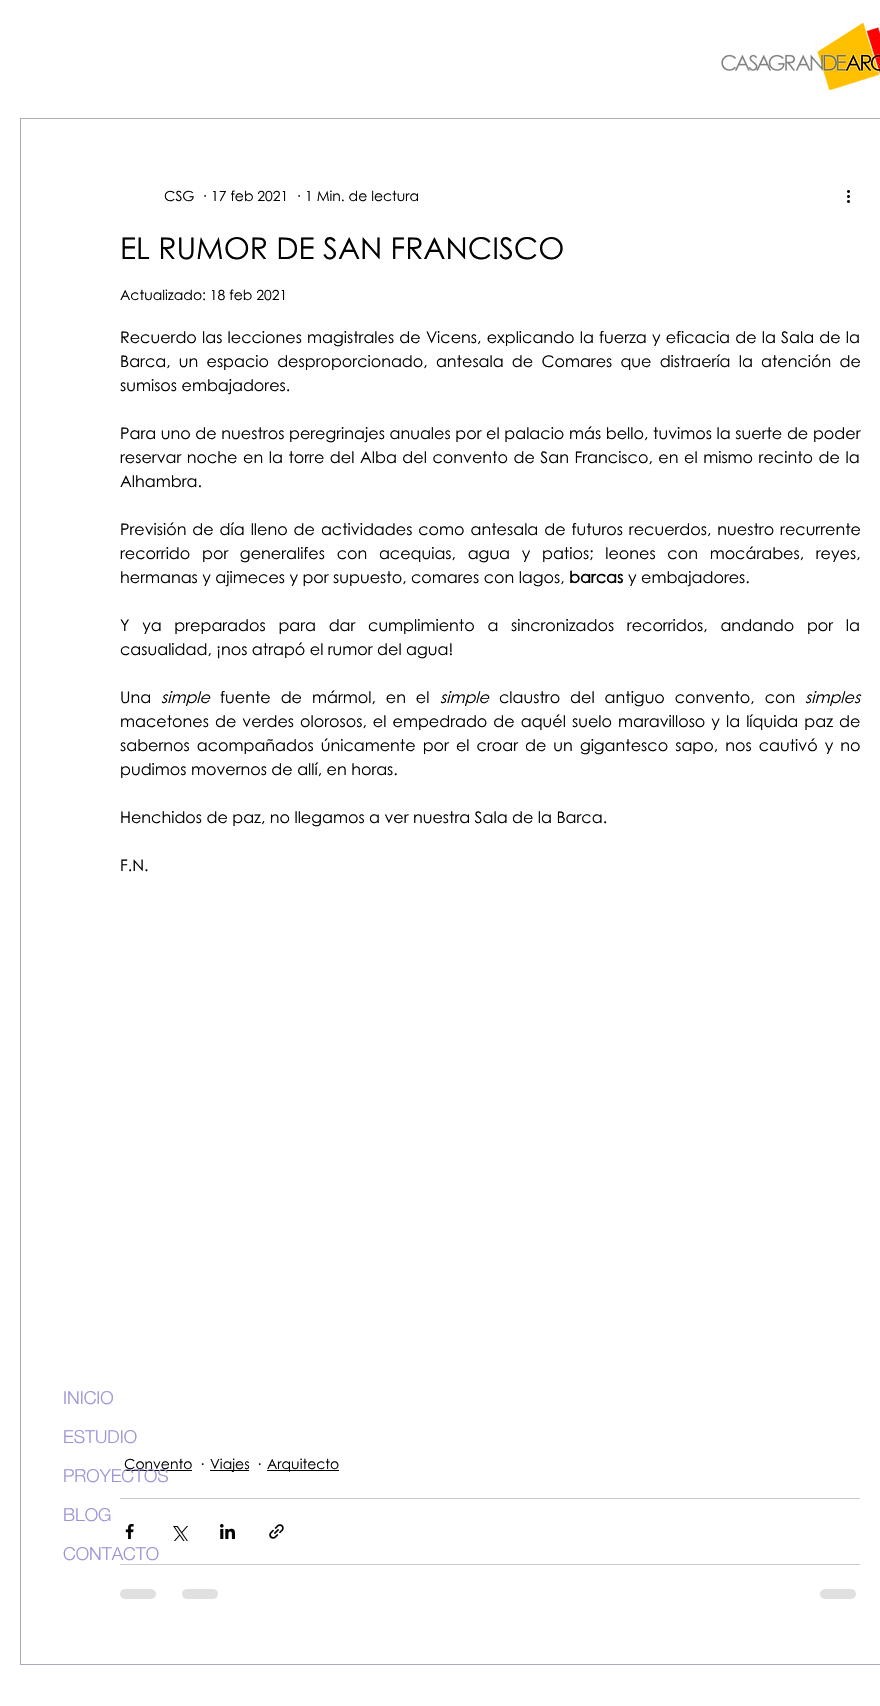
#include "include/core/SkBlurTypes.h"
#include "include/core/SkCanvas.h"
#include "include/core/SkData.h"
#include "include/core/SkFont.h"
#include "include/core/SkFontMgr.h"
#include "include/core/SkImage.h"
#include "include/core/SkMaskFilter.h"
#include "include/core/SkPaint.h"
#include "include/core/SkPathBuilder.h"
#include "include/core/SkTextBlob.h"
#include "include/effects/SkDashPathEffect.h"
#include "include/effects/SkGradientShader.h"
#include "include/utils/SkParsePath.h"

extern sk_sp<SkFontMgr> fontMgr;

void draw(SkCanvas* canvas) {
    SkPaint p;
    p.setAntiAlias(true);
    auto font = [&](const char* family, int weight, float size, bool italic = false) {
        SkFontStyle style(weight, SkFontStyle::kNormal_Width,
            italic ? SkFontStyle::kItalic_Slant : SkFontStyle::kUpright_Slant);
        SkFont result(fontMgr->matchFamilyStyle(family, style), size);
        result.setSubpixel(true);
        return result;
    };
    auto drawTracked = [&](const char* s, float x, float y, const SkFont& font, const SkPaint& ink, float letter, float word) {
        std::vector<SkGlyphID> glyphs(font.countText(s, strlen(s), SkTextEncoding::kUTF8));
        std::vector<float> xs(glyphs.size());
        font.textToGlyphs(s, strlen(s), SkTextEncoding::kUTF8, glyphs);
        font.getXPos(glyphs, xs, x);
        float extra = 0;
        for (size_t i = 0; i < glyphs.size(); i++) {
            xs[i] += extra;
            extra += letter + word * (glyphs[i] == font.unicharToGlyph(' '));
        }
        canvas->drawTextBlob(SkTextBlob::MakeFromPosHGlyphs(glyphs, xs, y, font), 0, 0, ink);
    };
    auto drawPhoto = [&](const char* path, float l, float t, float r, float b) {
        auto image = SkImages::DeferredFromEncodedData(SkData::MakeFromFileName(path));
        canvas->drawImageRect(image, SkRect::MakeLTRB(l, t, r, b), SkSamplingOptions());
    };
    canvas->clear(0xFFFFFFFF);
    drawPhoto("media/1.png", 721, 23, 880, 90);
    p.setStyle(SkPaint::kStroke_Style);
    p.setStrokeWidth(1);
    p.setColor(0xFFABABBB);
    canvas->drawRect(SkRect::MakeLTRB(20.5f, 118.5f, 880.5f, 1664.5f), p);
    auto font1 = font("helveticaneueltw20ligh", 300, 18);
    p.setStyle(SkPaint::kFill_Style);
    p.setColor(0xFF9E91D7);
    canvas->drawString("INICIO", 63, 1404, font1, p);
    canvas->drawString("ESTUDIO", 63, 1443, font1, p);
    p.setColor(0xFF000000);
    canvas->drawRect(SkRect::MakeLTRB(124, 1470, 192, 1471), p);
    p.setColor(0xFF9E91D7);
    {
        const struct { const char* s; float x, y; } items[] = {
            {"PROYECTOS", 63, 1482},
            {"BLOG", 63, 1521},
            {"CONTACTO", 63, 1560},
        };
        for (auto [s, x, y] : items) {
            canvas->drawString(s, x, y, font1, p);
        }
    }
    auto font2 = font("Century Gothic", 400, 14);
    p.setColor(0xFF000000);
    {
        const struct { const char* s; float x, y; } items[] = {
            {"CSG", 164, 201},
            {"·", 201, 201},
            {"17 feb 2021", 211, 201},
            {"·", 295, 201},
            {"1 Min. de lectura", 305, 201},
        };
        for (auto [s, x, y] : items) {
            canvas->drawString(s, x, y, font2, p);
        }
    }
    drawPhoto("media/2.png", 847, 190, 850, 203);
    auto font3 = font("Century Gothic", 400, 30);
    canvas->drawString("EL RUMOR DE SAN FRANCISCO", 120, 259, font3, p);
    canvas->drawString("Actualizado: 18 feb 2021", 120, 300, font2, p);
    auto font4 = font("Century Gothic", 400, 16);
    drawTracked("Recuerdo las lecciones magistrales de Vicens, explicando la fuerza y eficacia de la Sala de la", 120, 343, font4, p, 0, 0.75f);
    drawTracked("Barca, un espacio desproporcionado, antesala de Comares que distraería la atención de", 120, 367, font4, p, 0, 3.75f);
    canvas->drawString("sumisos embajadores.", 120, 391, font4, p);
    drawTracked("Para uno de nuestros peregrinajes anuales por el palacio más bello, tuvimos la suerte de poder", 120, 439, font4, p, 0, 0.2f);
    drawTracked("reservar noche en la torre del Alba del convento de San Francisco, en el mismo recinto de la", 120, 463, font4, p, 0, 1.1f);
    canvas->drawString("Alhambra.", 120, 487, font4, p);
    drawTracked("Previsión de día lleno de actividades como antesala de futuros recuerdos, nuestro recurrente", 120, 535, font4, p, 0, 1.5f);
    drawTracked("recorrido por generalifes con acequias, agua y patios; leones con mocárabes, reyes,", 120, 559, font4, p, 0, 7.25f);
    canvas->drawString("hermanas y ajimeces y por supuesto, comares con lagos,", 120, 583, font4, p);
    auto font5 = font("Century Gothic", 700, 16);
    canvas->drawString("barcas", 569, 583, font5, p);
    canvas->drawString("y embajadores.", 628, 583, font4, p);
    drawTracked("Y ya preparados para dar cumplimiento a sincronizados recorridos, andando por la", 120, 631, font4, p, 0, 8.25f);
    canvas->drawString("casualidad, ¡nos atrapó el rumor del agua!", 120, 655, font4, p);
    canvas->drawString("Una", 120, 703, font4, p);
    auto font6 = font("Century Gothic", 400, 16, true);
    canvas->drawString("simple", 161, 703, font6, p);
    drawTracked("fuente de mármol, en el", 220, 703, font4, p, 0, 5.5f);
    canvas->drawString("simple", 440, 703, font6, p);
    drawTracked("claustro del antiguo convento, con", 499, 703, font4, p, 0, 5.5f);
    canvas->drawString("simples", 805, 703, font6, p);
    drawTracked("macetones de verdes olorosos, el empedrado de aquél suelo maravilloso y la líquida paz de", 120, 727, font4, p, 0, 1.6f);
    drawTracked("sabernos acompañados únicamente por el croar de un gigantesco sapo, nos cautivó y no", 120, 751, font4, p, 0, 2.6f);
    {
        const struct { const char* s; float x, y; } items[] = {
            {"pudimos movernos de allí, en horas.", 120, 775},
            {"Henchidos de paz, no llegamos a ver nuestra Sala de la Barca.", 120, 823},
            {"F.N.", 120, 871},
        };
        for (auto [s, x, y] : items) {
            canvas->drawString(s, x, y, font4, p);
        }
    }
    canvas->drawString("Convento", 124, 1469, font2, p);
    canvas->drawString("·", 198, 1470, font4, p);
    canvas->drawRect(SkRect::MakeLTRB(210, 1470, 249, 1471), p);
    canvas->drawString("Viajes", 210, 1469, font2, p);
    canvas->drawString("·", 255, 1470, font4, p);
    canvas->drawRect(SkRect::MakeLTRB(267, 1470, 339, 1471), p);
    canvas->drawString("Arquitecto", 267, 1469, font2, p);
    p.setColor(0xFFCCCCCC);
    canvas->drawRect(SkRect::MakeLTRB(120, 1498, 860, 1499), p);
    drawPhoto("media/3.png", 125, 1524, 134, 1539);
    drawPhoto("media/4.png", 173, 1526, 188, 1541);
    drawPhoto("media/5.png", 220, 1524, 235, 1539);
    drawPhoto("media/6.png", 269, 1524, 284, 1539);
    canvas->drawRect(SkRect::MakeLTRB(120, 1564, 860, 1565), p);
    p.setColor(0xFFE0E0E0);
    canvas->drawRoundRect(SkRect::MakeLTRB(120, 1589, 156, 1599), 5, 5, p);
    canvas->drawRoundRect(SkRect::MakeLTRB(182, 1589, 218, 1599), 5, 5, p);
    canvas->drawRoundRect(SkRect::MakeLTRB(820, 1589, 856, 1599), 5, 5, p);
}
